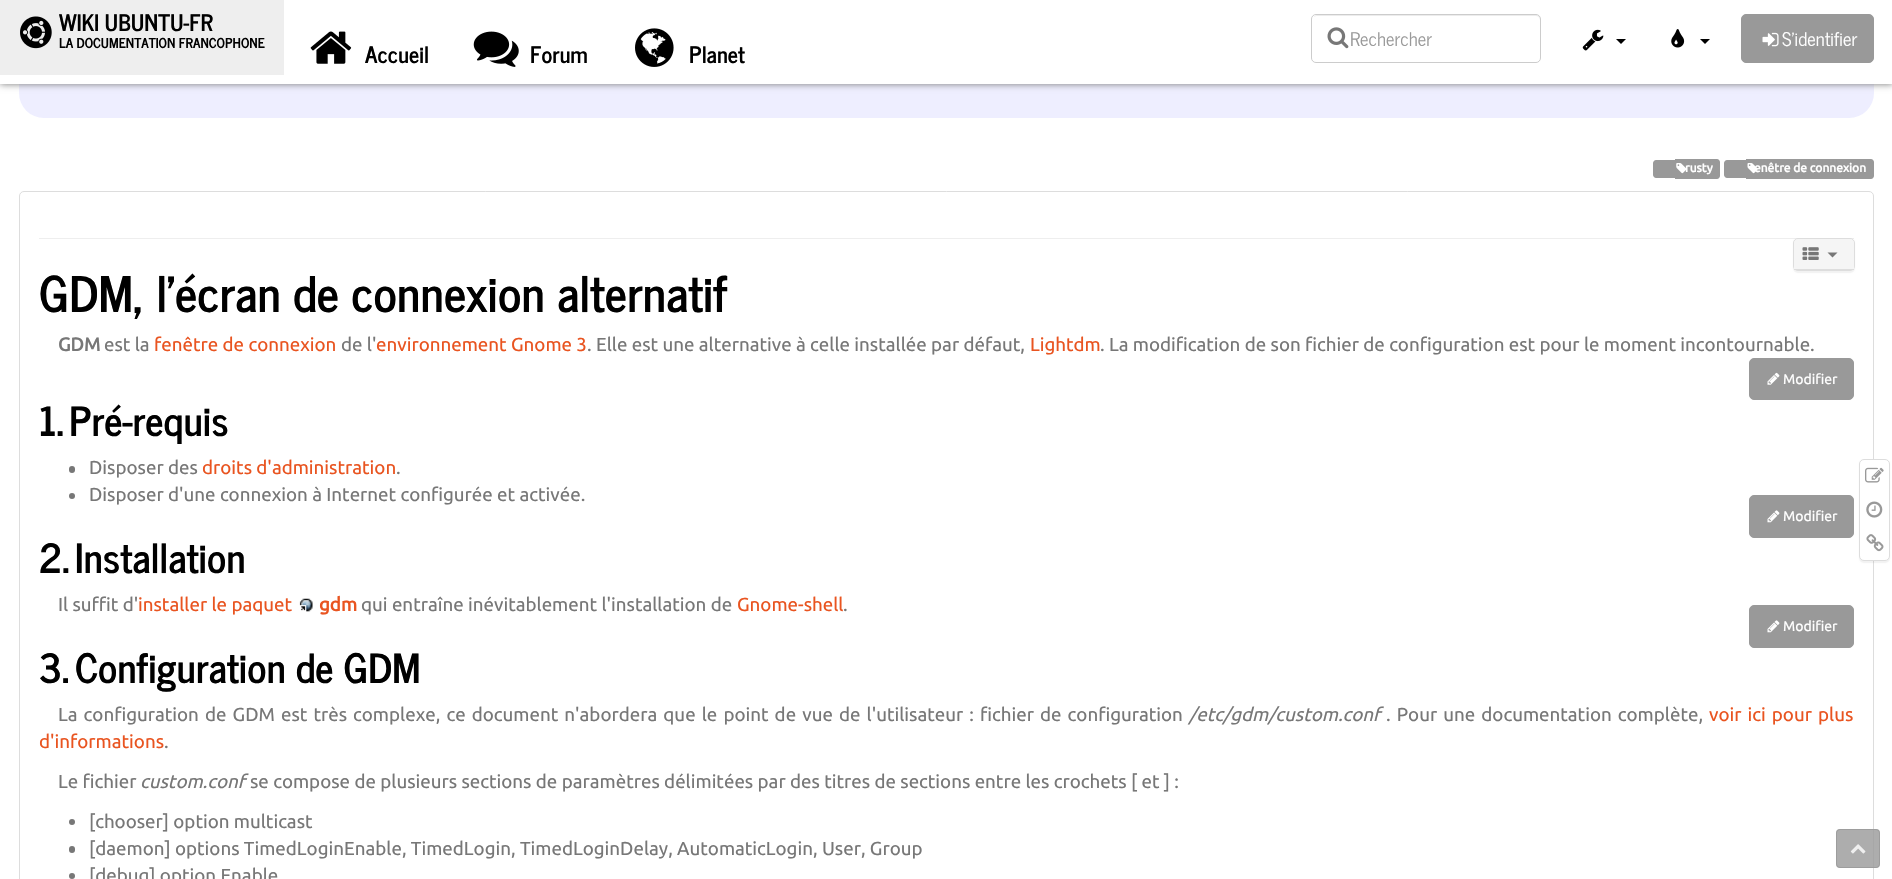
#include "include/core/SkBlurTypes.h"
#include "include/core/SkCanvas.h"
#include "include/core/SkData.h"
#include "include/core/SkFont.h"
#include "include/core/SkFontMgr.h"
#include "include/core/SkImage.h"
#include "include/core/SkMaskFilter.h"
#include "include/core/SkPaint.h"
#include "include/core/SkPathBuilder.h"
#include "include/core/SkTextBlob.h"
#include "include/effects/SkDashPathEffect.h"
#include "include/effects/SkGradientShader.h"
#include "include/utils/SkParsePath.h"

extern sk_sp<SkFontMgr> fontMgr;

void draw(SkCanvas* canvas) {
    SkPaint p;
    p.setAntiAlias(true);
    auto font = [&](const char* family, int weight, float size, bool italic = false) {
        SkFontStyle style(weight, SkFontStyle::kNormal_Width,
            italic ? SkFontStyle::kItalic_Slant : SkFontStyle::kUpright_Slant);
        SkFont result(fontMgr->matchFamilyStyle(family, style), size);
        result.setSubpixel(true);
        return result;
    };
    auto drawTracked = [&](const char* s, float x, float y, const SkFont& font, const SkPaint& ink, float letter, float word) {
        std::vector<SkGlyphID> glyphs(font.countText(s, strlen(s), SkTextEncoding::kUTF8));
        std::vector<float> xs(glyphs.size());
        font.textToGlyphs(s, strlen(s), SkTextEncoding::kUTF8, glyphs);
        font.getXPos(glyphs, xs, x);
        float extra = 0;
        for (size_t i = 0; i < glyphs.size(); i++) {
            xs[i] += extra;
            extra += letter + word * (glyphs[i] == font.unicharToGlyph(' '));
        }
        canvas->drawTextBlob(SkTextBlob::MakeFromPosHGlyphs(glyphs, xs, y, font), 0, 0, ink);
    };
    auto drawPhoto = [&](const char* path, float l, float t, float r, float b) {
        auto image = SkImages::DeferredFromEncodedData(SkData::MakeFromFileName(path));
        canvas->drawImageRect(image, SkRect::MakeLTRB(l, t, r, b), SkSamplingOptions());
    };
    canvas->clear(0xFFFFFFFF);
    p.setColor(0xFFEEEEFF);
    canvas->drawRoundRect(SkRect::MakeLTRB(19, -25, 1874, 118), 25, 25, p);
    p.setColor(0xFF777777);
    p.setMaskFilter(SkMaskFilter::MakeBlur(kNormal_SkBlurStyle, 3.5f));
    canvas->drawRect(SkRect::MakeLTRB(0, 0, 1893, 84), p);
    p.setMaskFilter(nullptr);
    p.setColor(0xFFFFFFFF);
    canvas->drawRect(SkRect::MakeLTRB(0, 0, 1892, 84), p);
    p.setColor(0xFFEEEEEE);
    canvas->drawRect(SkRect::MakeLTRB(0, 0, 284, 75), p);
    drawPhoto("media/1.png", 20, 16, 52, 49);
    auto font1 = font("News Cycle", 700, 22.5f);
    p.setColor(0xFF000000);
    canvas->drawString("WIKI UBUNTU-FR", 59, 31, font1, p);
    auto font2 = font("News Cycle", 700, 13.5f);
    canvas->drawString("LA DOCUMENTATION FRANCOPHONE", 59, 48, font2, p);
    p.setColor(0xFFECECEC);
    canvas->drawPath(SkPathBuilder().moveTo(1316, 16).lineTo(1536, 16).cubicTo(1538, 16, 1540, 18, 1540, 20).lineTo(1540, 19).cubicTo(1540, 17, 1538, 15, 1536, 15).lineTo(1317, 15).cubicTo(1316, 15, 1314, 16, 1314, 17).close().detach(), p);
    p.setStyle(SkPaint::kStroke_Style);
    p.setStrokeWidth(1);
    p.setColor(0xFFCCCCCC);
    canvas->drawRoundRect(SkRect::MakeLTRB(1311.5f, 14.5f, 1540.5f, 62.5f), 4.5f, 4.5f, p);
    drawPhoto("media/2.png", 1327, 27, 1349, 49);
    auto font3 = font("News Cycle", 400, 18.75f);
    p.setStyle(SkPaint::kFill_Style);
    p.setColor(0xFF999999);
    canvas->drawString("Rechercher", 1350, 46, font3, p);
    drawPhoto("media/3.png", 1582, 29, 1604, 51);
    p.setColor(0xFF000000);
    canvas->drawPath(SkPathBuilder().moveTo(1616, 39).lineTo(1626, 39).lineTo(1621, 44).close().detach(), p);
    drawPhoto("media/4.png", 1671, 29, 1685, 48);
    canvas->drawPath(SkPathBuilder().moveTo(1700, 39).lineTo(1710, 39).lineTo(1705, 44).close().detach(), p);
    p.setColor(0xFF999999);
    canvas->drawRoundRect(SkRect::MakeLTRB(1741.5f, 14.5f, 1873.5f, 62.5f), 4.5f, 4.5f, p);
    p.setStyle(SkPaint::kStroke_Style);
    canvas->drawRoundRect(SkRect::MakeLTRB(1741.5f, 14.5f, 1873.5f, 62.5f), 4.5f, 4.5f, p);
    drawPhoto("media/5.png", 1762, 32, 1779, 47);
    p.setStyle(SkPaint::kFill_Style);
    p.setColor(0xFFFFFFFF);
    canvas->drawString("S'identifier", 1782, 46, font3, p);
    drawPhoto("media/6.png", 310, 31, 352, 64);
    p.setColor(0xFF000000);
    canvas->drawString("Accueil", 365, 63, font1, p);
    drawPhoto("media/7.png", 473, 31, 519, 67);
    canvas->drawString("Forum", 530, 63, font1, p);
    drawPhoto("media/8.png", 635, 28, 674, 67);
    canvas->drawString("Planet", 689, 63, font1, p);
    p.setColor(0xFF999999);
    canvas->drawPath(SkPathBuilder().moveTo(1656, 160).lineTo(1675, 160).lineTo(1675, 178).lineTo(1656, 178).cubicTo(1654.5f, 178, 1653, 176.5f, 1653, 175).lineTo(1653, 163).cubicTo(1653, 161.5f, 1654.5f, 160, 1656, 160).close().detach(), p);
    canvas->drawRect(SkRect::MakeLTRB(1675, 159, 1678, 179), p);
    canvas->drawPath(SkPathBuilder().moveTo(1678, 159).lineTo(1717, 159).cubicTo(1718.5f, 159, 1720, 160.5f, 1720, 162).lineTo(1720, 176).cubicTo(1720, 177.5f, 1718.5f, 179, 1717, 179).lineTo(1678, 179).close().detach(), p);
    drawPhoto("media/9.png", 1676, 163, 1687, 174);
    auto font4 = font("Ubuntu", 700, 12);
    p.setColor(0xFFFFFFFF);
    canvas->drawString("rusty", 1685, 172, font4, p);
    p.setColor(0xFF999999);
    canvas->drawPath(SkPathBuilder().moveTo(1727, 160).lineTo(1746, 160).lineTo(1746, 178).lineTo(1727, 178).cubicTo(1725.5f, 178, 1724, 176.5f, 1724, 175).lineTo(1724, 163).cubicTo(1724, 161.5f, 1725.5f, 160, 1727, 160).close().detach(), p);
    canvas->drawRect(SkRect::MakeLTRB(1746, 159, 1749, 179), p);
    canvas->drawPath(SkPathBuilder().moveTo(1749, 159).lineTo(1871, 159).cubicTo(1872.5f, 159, 1874, 160.5f, 1874, 162).lineTo(1874, 176).cubicTo(1874, 177.5f, 1872.5f, 179, 1871, 179).lineTo(1749, 179).close().detach(), p);
    drawPhoto("media/10.png", 1747, 163, 1758, 174);
    p.setColor(0xFFFFFFFF);
    canvas->drawString("enêtre de connexion", 1754, 172, font4, p);
    p.setStyle(SkPaint::kStroke_Style);
    p.setColor(0xFFDDDDDD);
    canvas->drawRoundRect(SkRect::MakeLTRB(19.5f, 191.5f, 1873.5f, 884.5f), 4.5f, 4.5f, p);
    p.setStyle(SkPaint::kFill_Style);
    p.setColor(0xFFEEEEEE);
    canvas->drawRect(SkRect::MakeLTRB(39, 238, 1854, 239), p);
    p.setColor(0x0D000000);
    p.setMaskFilter(SkMaskFilter::MakeBlur(kNormal_SkBlurStyle, 0.5f));
    canvas->drawRoundRect(SkRect::MakeLTRB(1793, 239, 1855, 273), 5, 5, p);
    p.setMaskFilter(nullptr);
    p.setStyle(SkPaint::kStroke_Style);
    p.setColor(0xFFDDDDDD);
    canvas->drawRoundRect(SkRect::MakeLTRB(1793.5f, 238.5f, 1854.5f, 270.5f), 4.5f, 4.5f, p);
    p.setStyle(SkPaint::kFill_Style);
    p.setColor(0xFFF5F5F5);
    canvas->drawPath(SkPathBuilder().moveTo(1798, 239).lineTo(1850, 239).cubicTo(1852, 239, 1854, 241, 1854, 243).lineTo(1854, 270).lineTo(1794, 270).lineTo(1794, 243).cubicTo(1794, 241, 1796, 239, 1798, 239).close().detach(), p);
    p.setColor(0xFFDDDDDD);
    canvas->drawRect(SkRect::MakeLTRB(1794, 269, 1854, 270), p);
    drawPhoto("media/11.png", 1802, 247, 1819, 260);
    p.setColor(0xFF777777);
    canvas->drawPath(SkPathBuilder().moveTo(1827.5f, 252.5f).lineTo(1837.5f, 252.5f).lineTo(1832.5f, 257.5f).close().detach(), p);
    auto font5 = font("News Cycle", 700, 48.75f);
    p.setColor(0xFF000000);
    canvas->drawString("GDM, l'écran de connexion alternatif", 39, 312, font5, p);
    auto font6 = font("Ubuntu", 700, 18.75f);
    p.setColor(0xFF777777);
    canvas->drawString("GDM", 58, 351, font6, p);
    auto font7 = font("Ubuntu", 400, 18.75f);
    canvas->drawString("est la", 104, 351, font7, p);
    p.setColor(0xFFE95420);
    canvas->drawString("fenêtre de connexion", 154, 351, font7, p);
    p.setColor(0xFF777777);
    canvas->drawString("de l'", 341, 351, font7, p);
    p.setColor(0xFFE95420);
    canvas->drawString("environnement Gnome 3", 376, 351, font7, p);
    p.setColor(0xFF777777);
    canvas->drawString(". Elle est une alternative à celle installée par défaut,", 587, 351, font7, p);
    p.setColor(0xFFE95420);
    canvas->drawString("Lightdm", 1030, 351, font7, p);
    p.setColor(0xFF777777);
    canvas->drawString(". La modification de son fichier de configuration est pour le moment incontournable.", 1100, 351, font7, p);
    p.setColor(0xFF999999);
    canvas->drawRoundRect(SkRect::MakeLTRB(1749.5f, 358.5f, 1853.5f, 399.5f), 4.5f, 4.5f, p);
    p.setStyle(SkPaint::kStroke_Style);
    canvas->drawRoundRect(SkRect::MakeLTRB(1749.5f, 358.5f, 1853.5f, 399.5f), 4.5f, 4.5f, p);
    drawPhoto("media/12.png", 1767, 372, 1780, 385);
    auto font8 = font("Ubuntu", 400, 14);
    p.setStyle(SkPaint::kFill_Style);
    p.setColor(0xFFFFFFFF);
    canvas->drawString("Modifier", 1783, 384, font8, p);
    auto font9 = font("News Cycle", 700, 40);
    p.setColor(0xFF000000);
    canvas->drawString("1.", 39, 436, font9, p);
    canvas->drawString("Pré-requis", 69, 436, font9, p);
    p.setColor(0xFF777777);
    canvas->drawRoundRect(SkRect::MakeLTRB(69, 466, 75, 473), 3, 3, p);
    canvas->drawString("Disposer des", 89, 474, font7, p);
    p.setColor(0xFFE95420);
    canvas->drawString("droits d'administration", 202, 474, font7, p);
    p.setColor(0xFF777777);
    canvas->drawString(".", 396, 474, font7, p);
    canvas->drawCircle(72, 496, 3, p);
    canvas->drawString("Disposer d'une connexion à Internet configurée et activée.", 89, 501, font7, p);
    p.setColor(0xFF999999);
    canvas->drawRoundRect(SkRect::MakeLTRB(1749.5f, 495.5f, 1853.5f, 537.5f), 4.5f, 4.5f, p);
    p.setStyle(SkPaint::kStroke_Style);
    canvas->drawRoundRect(SkRect::MakeLTRB(1749.5f, 495.5f, 1853.5f, 537.5f), 4.5f, 4.5f, p);
    drawPhoto("media/13.png", 1767, 510, 1780, 523);
    p.setStyle(SkPaint::kFill_Style);
    p.setColor(0xFFFFFFFF);
    canvas->drawString("Modifier", 1783, 521, font8, p);
    p.setColor(0xFF000000);
    canvas->drawString("2.", 39, 573, font9, p);
    canvas->drawString("Installation", 75, 573, font9, p);
    p.setColor(0xFF777777);
    canvas->drawString("Il suffit d'", 58, 611, font7, p);
    p.setColor(0xFFE95420);
    canvas->drawString("installer le paquet", 138, 611, font7, p);
    drawPhoto("media/14.png", 299, 598, 313, 612);
    canvas->drawString("gdm", 319, 611, font6, p);
    p.setColor(0xFF777777);
    canvas->drawString("qui entraîne inévitablement l'installation de", 361, 611, font7, p);
    p.setColor(0xFFE95420);
    canvas->drawString("Gnome-shell", 737, 611, font7, p);
    p.setColor(0xFF777777);
    canvas->drawString(".", 843, 611, font7, p);
    p.setColor(0xFF999999);
    canvas->drawRoundRect(SkRect::MakeLTRB(1749.5f, 605.5f, 1853.5f, 647.5f), 4.5f, 4.5f, p);
    p.setStyle(SkPaint::kStroke_Style);
    canvas->drawRoundRect(SkRect::MakeLTRB(1749.5f, 605.5f, 1853.5f, 647.5f), 4.5f, 4.5f, p);
    drawPhoto("media/13.png", 1767, 620, 1780, 633);
    p.setStyle(SkPaint::kFill_Style);
    p.setColor(0xFFFFFFFF);
    canvas->drawString("Modifier", 1783, 631, font8, p);
    p.setColor(0xFF000000);
    canvas->drawString("3.", 39, 683, font9, p);
    canvas->drawString("Configuration de GDM", 75, 683, font9, p);
    p.setColor(0xFF777777);
    drawTracked("La configuration de GDM est très complexe, ce document n'abordera que le point de vue de l'utilisateur : fichier de configuration", 58, 721, font7, p, 0, 1.75f);
    auto font10 = font("Ubuntu", 400, 18.75f, true);
    canvas->drawString("/etc/gdm/custom.conf", 1189, 721, font10, p);
    drawTracked(". Pour une documentation complète,", 1386, 721, font7, p, 0, 1.75f);
    p.setColor(0xFFE95420);
    drawTracked("voir ici pour plus", 1709, 721, font7, p, 0, 1.75f);
    canvas->drawString("d'informations", 39, 748, font7, p);
    p.setColor(0xFF777777);
    canvas->drawString(".", 164, 748, font7, p);
    canvas->drawString("Le fichier", 58, 788, font7, p);
    canvas->drawString("custom.conf", 140, 788, font10, p);
    canvas->drawString("se compose de plusieurs sections de paramètres délimitées par des titres de sections entre les crochets [ et ] :", 250, 788, font7, p);
    canvas->drawCircle(72, 822, 3, p);
    canvas->drawString("[chooser] option multicast", 89, 828, font7, p);
    canvas->drawRoundRect(SkRect::MakeLTRB(69, 846, 75, 853), 3, 3, p);
    canvas->drawString("[daemon] options TimedLoginEnable, TimedLogin, TimedLoginDelay, AutomaticLogin, User, Group", 89, 855, font7, p);
    canvas->drawCircle(72, 876, 3, p);
    canvas->drawString("[debug] option Enable", 89, 882, font7, p);
    p.setColor(0x0D000000);
    p.setMaskFilter(SkMaskFilter::MakeBlur(kNormal_SkBlurStyle, 0.5f));
    canvas->drawRoundRect(SkRect::MakeLTRB(1859, 460, 1890, 563), 5, 5, p);
    p.setMaskFilter(nullptr);
    p.setColor(0xFFFFFFFF);
    canvas->drawRoundRect(SkRect::MakeLTRB(1859.5f, 459.5f, 1889.5f, 560.5f), 4.5f, 4.5f, p);
    p.setStyle(SkPaint::kStroke_Style);
    p.setColor(0xFFDDDDDD);
    canvas->drawRoundRect(SkRect::MakeLTRB(1859.5f, 459.5f, 1889.5f, 560.5f), 4.5f, 4.5f, p);
    drawPhoto("media/15.png", 1865, 467, 1884, 483);
    drawPhoto("media/16.png", 1866, 501, 1883, 518);
    drawPhoto("media/17.png", 1866, 534, 1884, 552);
    p.setStyle(SkPaint::kFill_Style);
    p.setColor(0xCC999999);
    canvas->drawRoundRect(SkRect::MakeLTRB(1836, 829, 1880, 868), 4, 4, p);
    p.setStyle(SkPaint::kStroke_Style);
    canvas->drawRoundRect(SkRect::MakeLTRB(1836.5f, 829.5f, 1879.5f, 867.5f), 3.5f, 3.5f, p);
    drawPhoto("media/18.png", 1850, 844, 1866, 854);
}
